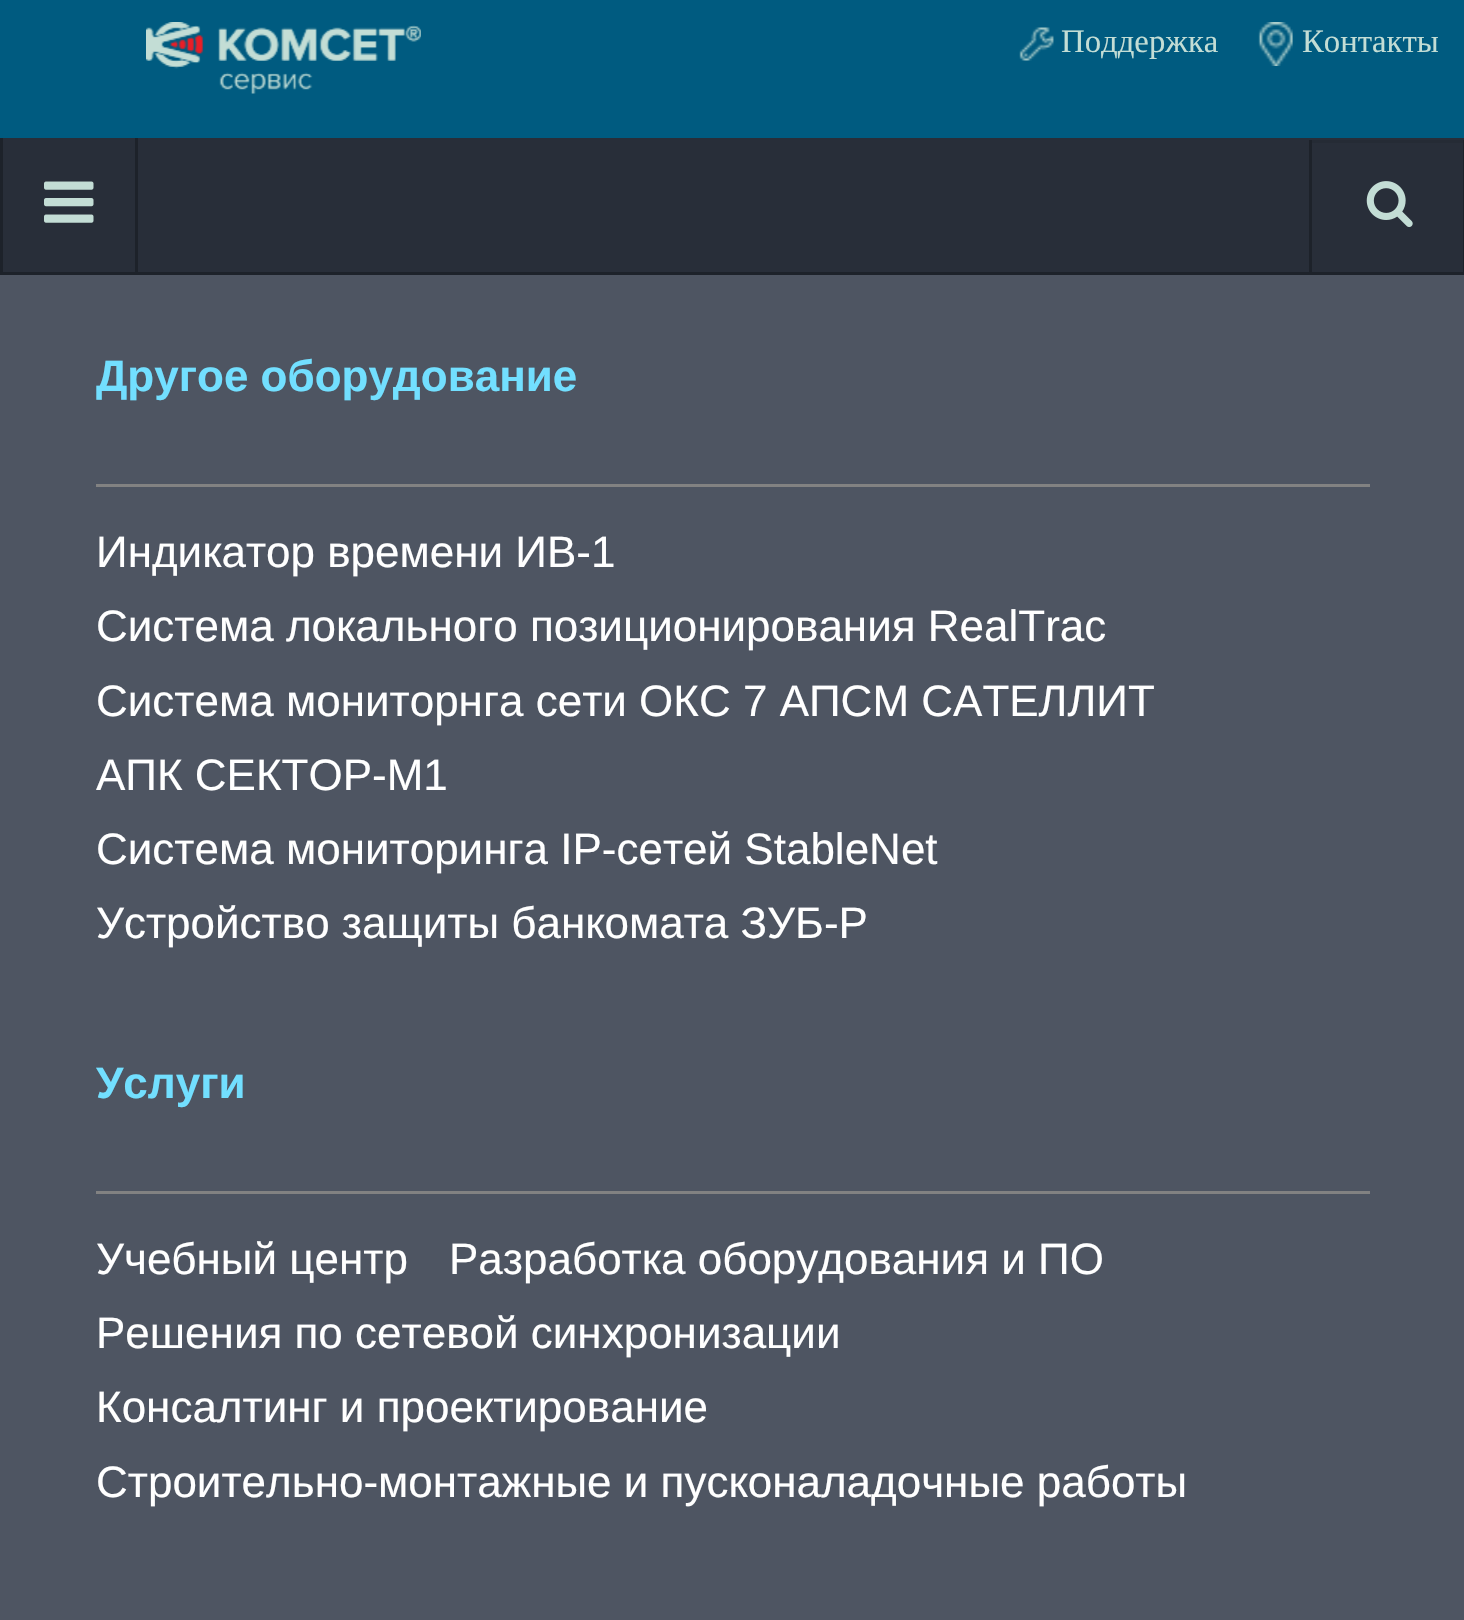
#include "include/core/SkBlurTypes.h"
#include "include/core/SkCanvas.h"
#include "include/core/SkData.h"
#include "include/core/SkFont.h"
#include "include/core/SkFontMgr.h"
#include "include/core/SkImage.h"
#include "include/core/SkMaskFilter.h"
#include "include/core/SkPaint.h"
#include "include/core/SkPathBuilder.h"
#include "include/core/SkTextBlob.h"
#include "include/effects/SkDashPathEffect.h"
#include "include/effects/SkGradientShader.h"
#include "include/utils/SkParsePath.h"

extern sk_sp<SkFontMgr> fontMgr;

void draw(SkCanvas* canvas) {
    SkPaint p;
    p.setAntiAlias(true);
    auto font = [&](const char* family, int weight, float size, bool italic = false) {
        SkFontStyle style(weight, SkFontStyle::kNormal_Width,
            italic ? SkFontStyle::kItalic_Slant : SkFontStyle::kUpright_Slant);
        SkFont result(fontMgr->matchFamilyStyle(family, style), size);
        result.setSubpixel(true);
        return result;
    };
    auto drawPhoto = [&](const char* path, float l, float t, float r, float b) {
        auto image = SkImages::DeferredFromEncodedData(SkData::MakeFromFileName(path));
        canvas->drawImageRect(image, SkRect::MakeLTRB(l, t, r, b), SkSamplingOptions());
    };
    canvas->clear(0xFF4E5562);
    p.setColor(0xFF005B80);
    canvas->drawRect(SkRect::MakeLTRB(0, 0, 1464, 138), p);
    drawPhoto("media/1.png", 146, 22, 421, 94);
    drawPhoto("media/2.png", 1019, 27, 1054, 61);
    auto font1 = font("Liberation Serif", 400, 32.75f);
    p.setColor(0xFFC3DDD5);
    canvas->drawString("Поддержка", 1061, 52, font1, p);
    drawPhoto("media/3.png", 1258, 22, 1293, 66);
    canvas->drawString("Контакты", 1302, 52, font1, p);
    {
        const struct { float l, t, r, b; SkColor color; } items[] = {
            {3, 138, 1464, 272, 0xFF282E39},
            {0, 272, 1464, 275, 0xFF1D222A},
            {135, 138, 138, 275, 0xFF1D222A},
            {0, 138, 3, 275, 0xFF1D222A},
        };
        for (auto [l, t, r, b, color] : items) {
            p.setColor(color);
            canvas->drawRect(SkRect::MakeLTRB(l, t, r, b), p);
        }
    }
    drawPhoto("media/4.png", 44, 181, 94, 223);
    {
        const struct { float l, t, r, b; SkColor color; } items[] = {
            {1463, 140, 1464, 272, 0xFF1D222A},
            {1309, 140, 1312, 272, 0xFF1D222A},
            {1312, 140, 1463, 143, 0xFF252B35},
        };
        for (auto [l, t, r, b, color] : items) {
            p.setColor(color);
            canvas->drawRect(SkRect::MakeLTRB(l, t, r, b), p);
        }
    }
    drawPhoto("media/5.png", 1366, 181, 1413, 228);
    p.setColor(0xFF828282);
    canvas->drawRect(SkRect::MakeLTRB(96, 484, 1370, 487), p);
    auto font2 = font("Liberation Sans", 700, 44);
    p.setColor(0xFF72DFFF);
    canvas->drawString("Другое оборудование", 96, 391, font2, p);
    auto font3 = font("Liberation Sans", 400, 44);
    p.setColor(0xFFFFFFFF);
    {
        const struct { const char* s; float x, y; } items[] = {
            {"Индикатор времени ИВ-1", 96, 567},
            {"Система локального позиционирования RealTrac", 96, 641},
            {"Система мониторнга сети ОКС 7 АПСМ САТЕЛЛИТ", 96, 716},
            {"АПК СЕКТОР-М1", 96, 790},
            {"Система мониторинга IP-сетей StableNet", 96, 864},
            {"Устройство защиты банкомата ЗУБ-Р", 96, 938},
        };
        for (auto [s, x, y] : items) {
            canvas->drawString(s, x, y, font3, p);
        }
    }
    p.setColor(0xFF828282);
    canvas->drawRect(SkRect::MakeLTRB(96, 1191, 1370, 1194), p);
    p.setColor(0xFF72DFFF);
    canvas->drawString("Услуги", 96, 1098, font2, p);
    p.setColor(0xFFFFFFFF);
    {
        const struct { const char* s; float x, y; } items[] = {
            {"Учебный центр", 96, 1274},
            {"Разработка оборудования и ПО", 449, 1274},
            {"Решения по сетевой синхронизации", 96, 1348},
            {"Консалтинг и проектирование", 96, 1422},
            {"Строительно-монтажные и пусконаладочные работы", 96, 1497},
        };
        for (auto [s, x, y] : items) {
            canvas->drawString(s, x, y, font3, p);
        }
    }
}
